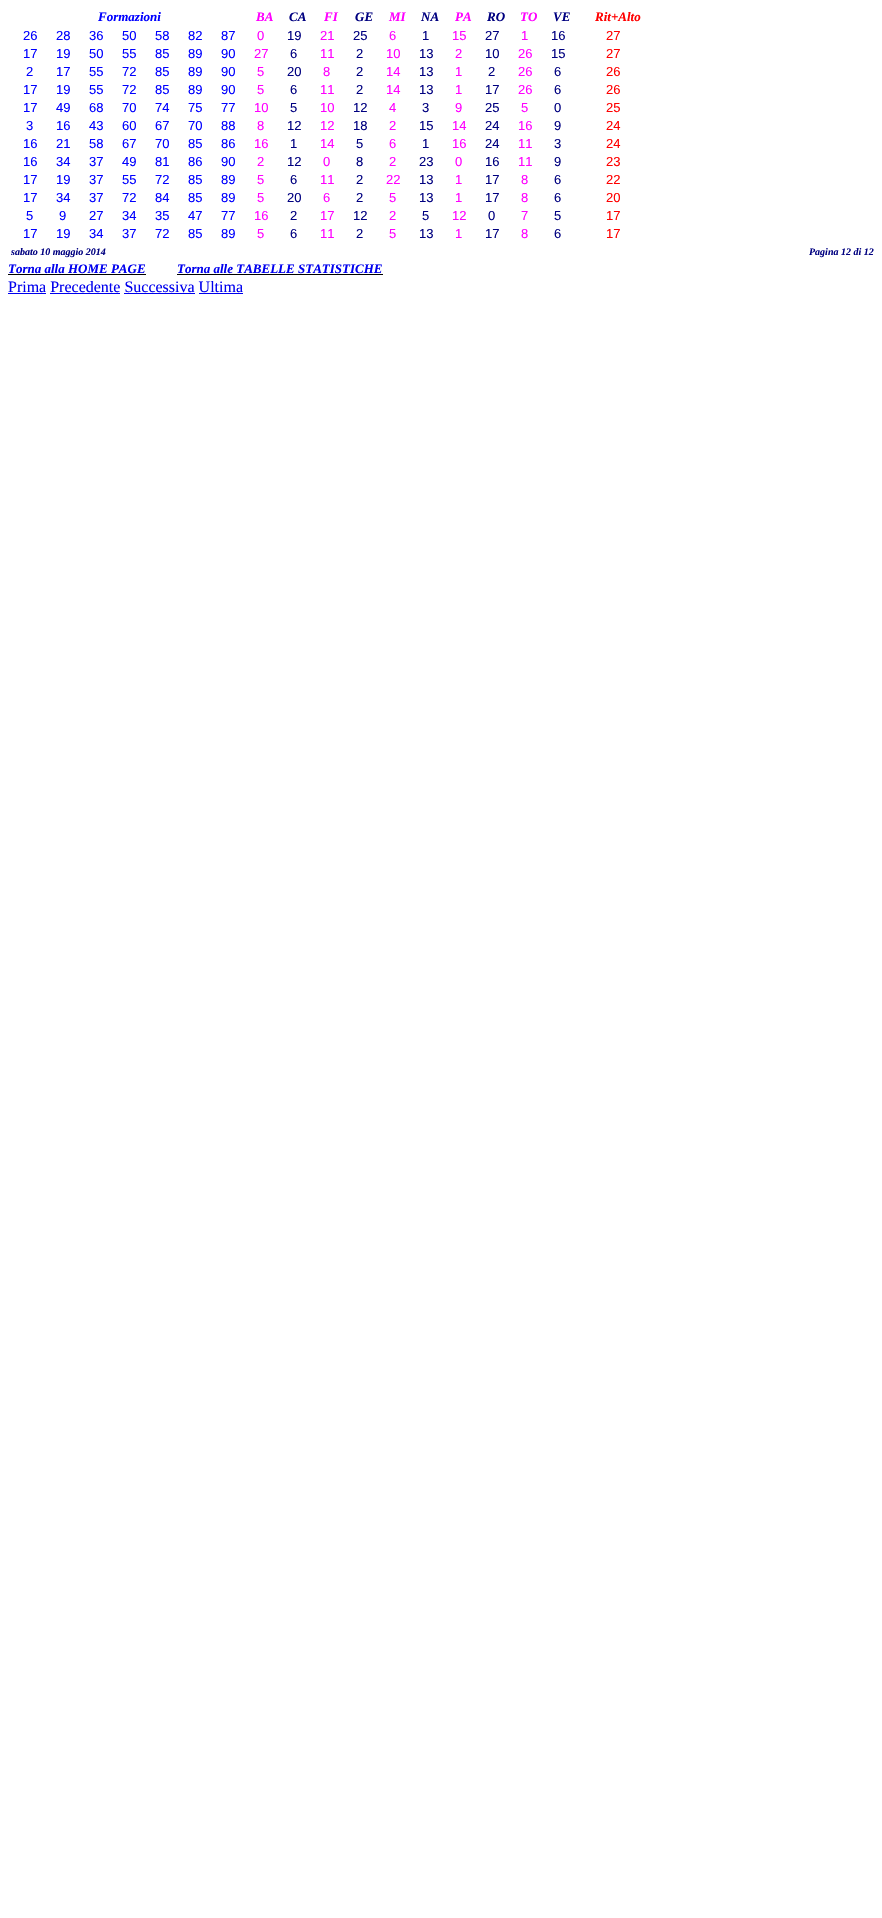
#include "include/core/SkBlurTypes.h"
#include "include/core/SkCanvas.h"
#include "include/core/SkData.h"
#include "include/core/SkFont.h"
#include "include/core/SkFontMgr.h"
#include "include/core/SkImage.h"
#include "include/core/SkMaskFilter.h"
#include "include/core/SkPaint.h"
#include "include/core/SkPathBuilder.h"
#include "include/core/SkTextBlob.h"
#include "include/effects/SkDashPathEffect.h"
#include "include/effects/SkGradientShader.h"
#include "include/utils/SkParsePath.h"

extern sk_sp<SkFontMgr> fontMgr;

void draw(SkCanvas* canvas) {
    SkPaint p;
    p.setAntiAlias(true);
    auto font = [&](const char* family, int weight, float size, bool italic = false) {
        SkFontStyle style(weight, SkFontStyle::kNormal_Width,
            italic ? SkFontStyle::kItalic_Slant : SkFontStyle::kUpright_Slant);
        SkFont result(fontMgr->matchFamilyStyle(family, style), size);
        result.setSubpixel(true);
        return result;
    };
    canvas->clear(0xFFFFFFFF);
    auto font1 = font("Liberation Serif", 700, 13, true);
    p.setColor(0xFF0000FF);
    canvas->drawString("Formazioni", 98, 21, font1, p);
    p.setColor(0xFFFF00FF);
    canvas->drawString("BA", 256, 21, font1, p);
    p.setColor(0xFF000080);
    canvas->drawString("CA", 289, 21, font1, p);
    p.setColor(0xFFFF00FF);
    canvas->drawString("FI", 324, 21, font1, p);
    p.setColor(0xFF000080);
    canvas->drawString("GE", 355, 21, font1, p);
    p.setColor(0xFFFF00FF);
    canvas->drawString("MI", 389, 21, font1, p);
    p.setColor(0xFF000080);
    canvas->drawString("NA", 421, 21, font1, p);
    p.setColor(0xFFFF00FF);
    canvas->drawString("PA", 455, 21, font1, p);
    p.setColor(0xFF000080);
    canvas->drawString("RO", 487, 21, font1, p);
    p.setColor(0xFFFF00FF);
    canvas->drawString("TO", 520, 21, font1, p);
    p.setColor(0xFF000080);
    canvas->drawString("VE", 553, 21, font1, p);
    p.setColor(0xFFFF0000);
    canvas->drawString("Rit+Alto", 595, 21, font1, p);
    auto font2 = font("Liberation Sans", 400, 13);
    p.setColor(0xFF0000FF);
    {
        const struct { const char* s; float x, y; } items[] = {
            {"26", 23, 40},
            {"28", 56, 40},
            {"36", 89, 40},
            {"50", 122, 40},
            {"58", 155, 40},
            {"82", 188, 40},
            {"87", 221, 40},
        };
        for (auto [s, x, y] : items) {
            canvas->drawString(s, x, y, font2, p);
        }
    }
    p.setColor(0xFFFF00FF);
    canvas->drawString("0", 257, 40, font2, p);
    p.setColor(0xFF000080);
    canvas->drawString("19", 287, 40, font2, p);
    p.setColor(0xFFFF00FF);
    canvas->drawString("21", 320, 40, font2, p);
    p.setColor(0xFF000080);
    canvas->drawString("25", 353, 40, font2, p);
    p.setColor(0xFFFF00FF);
    canvas->drawString("6", 389, 40, font2, p);
    p.setColor(0xFF000080);
    canvas->drawString("1", 422, 40, font2, p);
    p.setColor(0xFFFF00FF);
    canvas->drawString("15", 452, 40, font2, p);
    p.setColor(0xFF000080);
    canvas->drawString("27", 485, 40, font2, p);
    p.setColor(0xFFFF00FF);
    canvas->drawString("1", 521, 40, font2, p);
    p.setColor(0xFF000080);
    canvas->drawString("16", 551, 40, font2, p);
    p.setColor(0xFFFF0000);
    canvas->drawString("27", 606, 40, font2, p);
    p.setColor(0xFF0000FF);
    {
        const struct { const char* s; float x, y; } items[] = {
            {"17", 23, 58},
            {"19", 56, 58},
            {"50", 89, 58},
            {"55", 122, 58},
            {"85", 155, 58},
            {"89", 188, 58},
            {"90", 221, 58},
        };
        for (auto [s, x, y] : items) {
            canvas->drawString(s, x, y, font2, p);
        }
    }
    p.setColor(0xFFFF00FF);
    canvas->drawString("27", 254, 58, font2, p);
    p.setColor(0xFF000080);
    canvas->drawString("6", 290, 58, font2, p);
    p.setColor(0xFFFF00FF);
    canvas->drawString("11", 320, 58, font2, p);
    p.setColor(0xFF000080);
    canvas->drawString("2", 356, 58, font2, p);
    p.setColor(0xFFFF00FF);
    canvas->drawString("10", 386, 58, font2, p);
    p.setColor(0xFF000080);
    canvas->drawString("13", 419, 58, font2, p);
    p.setColor(0xFFFF00FF);
    canvas->drawString("2", 455, 58, font2, p);
    p.setColor(0xFF000080);
    canvas->drawString("10", 485, 58, font2, p);
    p.setColor(0xFFFF00FF);
    canvas->drawString("26", 518, 58, font2, p);
    p.setColor(0xFF000080);
    canvas->drawString("15", 551, 58, font2, p);
    p.setColor(0xFFFF0000);
    canvas->drawString("27", 606, 58, font2, p);
    p.setColor(0xFF0000FF);
    {
        const struct { const char* s; float x, y; } items[] = {
            {"2", 26, 76},
            {"17", 56, 76},
            {"55", 89, 76},
            {"72", 122, 76},
            {"85", 155, 76},
            {"89", 188, 76},
            {"90", 221, 76},
        };
        for (auto [s, x, y] : items) {
            canvas->drawString(s, x, y, font2, p);
        }
    }
    p.setColor(0xFFFF00FF);
    canvas->drawString("5", 257, 76, font2, p);
    p.setColor(0xFF000080);
    canvas->drawString("20", 287, 76, font2, p);
    p.setColor(0xFFFF00FF);
    canvas->drawString("8", 323, 76, font2, p);
    p.setColor(0xFF000080);
    canvas->drawString("2", 356, 76, font2, p);
    p.setColor(0xFFFF00FF);
    canvas->drawString("14", 386, 76, font2, p);
    p.setColor(0xFF000080);
    canvas->drawString("13", 419, 76, font2, p);
    p.setColor(0xFFFF00FF);
    canvas->drawString("1", 455, 76, font2, p);
    p.setColor(0xFF000080);
    canvas->drawString("2", 488, 76, font2, p);
    p.setColor(0xFFFF00FF);
    canvas->drawString("26", 518, 76, font2, p);
    p.setColor(0xFF000080);
    canvas->drawString("6", 554, 76, font2, p);
    p.setColor(0xFFFF0000);
    canvas->drawString("26", 606, 76, font2, p);
    p.setColor(0xFF0000FF);
    {
        const struct { const char* s; float x, y; } items[] = {
            {"17", 23, 94},
            {"19", 56, 94},
            {"55", 89, 94},
            {"72", 122, 94},
            {"85", 155, 94},
            {"89", 188, 94},
            {"90", 221, 94},
        };
        for (auto [s, x, y] : items) {
            canvas->drawString(s, x, y, font2, p);
        }
    }
    p.setColor(0xFFFF00FF);
    canvas->drawString("5", 257, 94, font2, p);
    p.setColor(0xFF000080);
    canvas->drawString("6", 290, 94, font2, p);
    p.setColor(0xFFFF00FF);
    canvas->drawString("11", 320, 94, font2, p);
    p.setColor(0xFF000080);
    canvas->drawString("2", 356, 94, font2, p);
    p.setColor(0xFFFF00FF);
    canvas->drawString("14", 386, 94, font2, p);
    p.setColor(0xFF000080);
    canvas->drawString("13", 419, 94, font2, p);
    p.setColor(0xFFFF00FF);
    canvas->drawString("1", 455, 94, font2, p);
    p.setColor(0xFF000080);
    canvas->drawString("17", 485, 94, font2, p);
    p.setColor(0xFFFF00FF);
    canvas->drawString("26", 518, 94, font2, p);
    p.setColor(0xFF000080);
    canvas->drawString("6", 554, 94, font2, p);
    p.setColor(0xFFFF0000);
    canvas->drawString("26", 606, 94, font2, p);
    p.setColor(0xFF0000FF);
    {
        const struct { const char* s; float x, y; } items[] = {
            {"17", 23, 112},
            {"49", 56, 112},
            {"68", 89, 112},
            {"70", 122, 112},
            {"74", 155, 112},
            {"75", 188, 112},
            {"77", 221, 112},
        };
        for (auto [s, x, y] : items) {
            canvas->drawString(s, x, y, font2, p);
        }
    }
    p.setColor(0xFFFF00FF);
    canvas->drawString("10", 254, 112, font2, p);
    p.setColor(0xFF000080);
    canvas->drawString("5", 290, 112, font2, p);
    p.setColor(0xFFFF00FF);
    canvas->drawString("10", 320, 112, font2, p);
    p.setColor(0xFF000080);
    canvas->drawString("12", 353, 112, font2, p);
    p.setColor(0xFFFF00FF);
    canvas->drawString("4", 389, 112, font2, p);
    p.setColor(0xFF000080);
    canvas->drawString("3", 422, 112, font2, p);
    p.setColor(0xFFFF00FF);
    canvas->drawString("9", 455, 112, font2, p);
    p.setColor(0xFF000080);
    canvas->drawString("25", 485, 112, font2, p);
    p.setColor(0xFFFF00FF);
    canvas->drawString("5", 521, 112, font2, p);
    p.setColor(0xFF000080);
    canvas->drawString("0", 554, 112, font2, p);
    p.setColor(0xFFFF0000);
    canvas->drawString("25", 606, 112, font2, p);
    p.setColor(0xFF0000FF);
    {
        const struct { const char* s; float x, y; } items[] = {
            {"3", 26, 130},
            {"16", 56, 130},
            {"43", 89, 130},
            {"60", 122, 130},
            {"67", 155, 130},
            {"70", 188, 130},
            {"88", 221, 130},
        };
        for (auto [s, x, y] : items) {
            canvas->drawString(s, x, y, font2, p);
        }
    }
    p.setColor(0xFFFF00FF);
    canvas->drawString("8", 257, 130, font2, p);
    p.setColor(0xFF000080);
    canvas->drawString("12", 287, 130, font2, p);
    p.setColor(0xFFFF00FF);
    canvas->drawString("12", 320, 130, font2, p);
    p.setColor(0xFF000080);
    canvas->drawString("18", 353, 130, font2, p);
    p.setColor(0xFFFF00FF);
    canvas->drawString("2", 389, 130, font2, p);
    p.setColor(0xFF000080);
    canvas->drawString("15", 419, 130, font2, p);
    p.setColor(0xFFFF00FF);
    canvas->drawString("14", 452, 130, font2, p);
    p.setColor(0xFF000080);
    canvas->drawString("24", 485, 130, font2, p);
    p.setColor(0xFFFF00FF);
    canvas->drawString("16", 518, 130, font2, p);
    p.setColor(0xFF000080);
    canvas->drawString("9", 554, 130, font2, p);
    p.setColor(0xFFFF0000);
    canvas->drawString("24", 606, 130, font2, p);
    p.setColor(0xFF0000FF);
    {
        const struct { const char* s; float x, y; } items[] = {
            {"16", 23, 148},
            {"21", 56, 148},
            {"58", 89, 148},
            {"67", 122, 148},
            {"70", 155, 148},
            {"85", 188, 148},
            {"86", 221, 148},
        };
        for (auto [s, x, y] : items) {
            canvas->drawString(s, x, y, font2, p);
        }
    }
    p.setColor(0xFFFF00FF);
    canvas->drawString("16", 254, 148, font2, p);
    p.setColor(0xFF000080);
    canvas->drawString("1", 290, 148, font2, p);
    p.setColor(0xFFFF00FF);
    canvas->drawString("14", 320, 148, font2, p);
    p.setColor(0xFF000080);
    canvas->drawString("5", 356, 148, font2, p);
    p.setColor(0xFFFF00FF);
    canvas->drawString("6", 389, 148, font2, p);
    p.setColor(0xFF000080);
    canvas->drawString("1", 422, 148, font2, p);
    p.setColor(0xFFFF00FF);
    canvas->drawString("16", 452, 148, font2, p);
    p.setColor(0xFF000080);
    canvas->drawString("24", 485, 148, font2, p);
    p.setColor(0xFFFF00FF);
    canvas->drawString("11", 518, 148, font2, p);
    p.setColor(0xFF000080);
    canvas->drawString("3", 554, 148, font2, p);
    p.setColor(0xFFFF0000);
    canvas->drawString("24", 606, 148, font2, p);
    p.setColor(0xFF0000FF);
    {
        const struct { const char* s; float x, y; } items[] = {
            {"16", 23, 166},
            {"34", 56, 166},
            {"37", 89, 166},
            {"49", 122, 166},
            {"81", 155, 166},
            {"86", 188, 166},
            {"90", 221, 166},
        };
        for (auto [s, x, y] : items) {
            canvas->drawString(s, x, y, font2, p);
        }
    }
    p.setColor(0xFFFF00FF);
    canvas->drawString("2", 257, 166, font2, p);
    p.setColor(0xFF000080);
    canvas->drawString("12", 287, 166, font2, p);
    p.setColor(0xFFFF00FF);
    canvas->drawString("0", 323, 166, font2, p);
    p.setColor(0xFF000080);
    canvas->drawString("8", 356, 166, font2, p);
    p.setColor(0xFFFF00FF);
    canvas->drawString("2", 389, 166, font2, p);
    p.setColor(0xFF000080);
    canvas->drawString("23", 419, 166, font2, p);
    p.setColor(0xFFFF00FF);
    canvas->drawString("0", 455, 166, font2, p);
    p.setColor(0xFF000080);
    canvas->drawString("16", 485, 166, font2, p);
    p.setColor(0xFFFF00FF);
    canvas->drawString("11", 518, 166, font2, p);
    p.setColor(0xFF000080);
    canvas->drawString("9", 554, 166, font2, p);
    p.setColor(0xFFFF0000);
    canvas->drawString("23", 606, 166, font2, p);
    p.setColor(0xFF0000FF);
    {
        const struct { const char* s; float x, y; } items[] = {
            {"17", 23, 184},
            {"19", 56, 184},
            {"37", 89, 184},
            {"55", 122, 184},
            {"72", 155, 184},
            {"85", 188, 184},
            {"89", 221, 184},
        };
        for (auto [s, x, y] : items) {
            canvas->drawString(s, x, y, font2, p);
        }
    }
    p.setColor(0xFFFF00FF);
    canvas->drawString("5", 257, 184, font2, p);
    p.setColor(0xFF000080);
    canvas->drawString("6", 290, 184, font2, p);
    p.setColor(0xFFFF00FF);
    canvas->drawString("11", 320, 184, font2, p);
    p.setColor(0xFF000080);
    canvas->drawString("2", 356, 184, font2, p);
    p.setColor(0xFFFF00FF);
    canvas->drawString("22", 386, 184, font2, p);
    p.setColor(0xFF000080);
    canvas->drawString("13", 419, 184, font2, p);
    p.setColor(0xFFFF00FF);
    canvas->drawString("1", 455, 184, font2, p);
    p.setColor(0xFF000080);
    canvas->drawString("17", 485, 184, font2, p);
    p.setColor(0xFFFF00FF);
    canvas->drawString("8", 521, 184, font2, p);
    p.setColor(0xFF000080);
    canvas->drawString("6", 554, 184, font2, p);
    p.setColor(0xFFFF0000);
    canvas->drawString("22", 606, 184, font2, p);
    p.setColor(0xFF0000FF);
    {
        const struct { const char* s; float x, y; } items[] = {
            {"17", 23, 202},
            {"34", 56, 202},
            {"37", 89, 202},
            {"72", 122, 202},
            {"84", 155, 202},
            {"85", 188, 202},
            {"89", 221, 202},
        };
        for (auto [s, x, y] : items) {
            canvas->drawString(s, x, y, font2, p);
        }
    }
    p.setColor(0xFFFF00FF);
    canvas->drawString("5", 257, 202, font2, p);
    p.setColor(0xFF000080);
    canvas->drawString("20", 287, 202, font2, p);
    p.setColor(0xFFFF00FF);
    canvas->drawString("6", 323, 202, font2, p);
    p.setColor(0xFF000080);
    canvas->drawString("2", 356, 202, font2, p);
    p.setColor(0xFFFF00FF);
    canvas->drawString("5", 389, 202, font2, p);
    p.setColor(0xFF000080);
    canvas->drawString("13", 419, 202, font2, p);
    p.setColor(0xFFFF00FF);
    canvas->drawString("1", 455, 202, font2, p);
    p.setColor(0xFF000080);
    canvas->drawString("17", 485, 202, font2, p);
    p.setColor(0xFFFF00FF);
    canvas->drawString("8", 521, 202, font2, p);
    p.setColor(0xFF000080);
    canvas->drawString("6", 554, 202, font2, p);
    p.setColor(0xFFFF0000);
    canvas->drawString("20", 606, 202, font2, p);
    p.setColor(0xFF0000FF);
    {
        const struct { const char* s; float x, y; } items[] = {
            {"5", 26, 220},
            {"9", 59, 220},
            {"27", 89, 220},
            {"34", 122, 220},
            {"35", 155, 220},
            {"47", 188, 220},
            {"77", 221, 220},
        };
        for (auto [s, x, y] : items) {
            canvas->drawString(s, x, y, font2, p);
        }
    }
    p.setColor(0xFFFF00FF);
    canvas->drawString("16", 254, 220, font2, p);
    p.setColor(0xFF000080);
    canvas->drawString("2", 290, 220, font2, p);
    p.setColor(0xFFFF00FF);
    canvas->drawString("17", 320, 220, font2, p);
    p.setColor(0xFF000080);
    canvas->drawString("12", 353, 220, font2, p);
    p.setColor(0xFFFF00FF);
    canvas->drawString("2", 389, 220, font2, p);
    p.setColor(0xFF000080);
    canvas->drawString("5", 422, 220, font2, p);
    p.setColor(0xFFFF00FF);
    canvas->drawString("12", 452, 220, font2, p);
    p.setColor(0xFF000080);
    canvas->drawString("0", 488, 220, font2, p);
    p.setColor(0xFFFF00FF);
    canvas->drawString("7", 521, 220, font2, p);
    p.setColor(0xFF000080);
    canvas->drawString("5", 554, 220, font2, p);
    p.setColor(0xFFFF0000);
    canvas->drawString("17", 606, 220, font2, p);
    p.setColor(0xFF0000FF);
    {
        const struct { const char* s; float x, y; } items[] = {
            {"17", 23, 238},
            {"19", 56, 238},
            {"34", 89, 238},
            {"37", 122, 238},
            {"72", 155, 238},
            {"85", 188, 238},
            {"89", 221, 238},
        };
        for (auto [s, x, y] : items) {
            canvas->drawString(s, x, y, font2, p);
        }
    }
    p.setColor(0xFFFF00FF);
    canvas->drawString("5", 257, 238, font2, p);
    p.setColor(0xFF000080);
    canvas->drawString("6", 290, 238, font2, p);
    p.setColor(0xFFFF00FF);
    canvas->drawString("11", 320, 238, font2, p);
    p.setColor(0xFF000080);
    canvas->drawString("2", 356, 238, font2, p);
    p.setColor(0xFFFF00FF);
    canvas->drawString("5", 389, 238, font2, p);
    p.setColor(0xFF000080);
    canvas->drawString("13", 419, 238, font2, p);
    p.setColor(0xFFFF00FF);
    canvas->drawString("1", 455, 238, font2, p);
    p.setColor(0xFF000080);
    canvas->drawString("17", 485, 238, font2, p);
    p.setColor(0xFFFF00FF);
    canvas->drawString("8", 521, 238, font2, p);
    p.setColor(0xFF000080);
    canvas->drawString("6", 554, 238, font2, p);
    p.setColor(0xFFFF0000);
    canvas->drawString("17", 606, 238, font2, p);
    auto font3 = font("Liberation Serif", 700, 10, true);
    p.setColor(0xFF000080);
    canvas->drawString("sabato 10 maggio 2014", 11, 255, font3, p);
    canvas->drawString("Pagina 12 di 12", 809, 255, font3, p);
    p.setColor(0xFF0000EE);
    canvas->drawString("Torna alla HOME PAGE", 8, 273, font1, p);
    p.setColor(0xFF000000);
    canvas->drawRect(SkRect::MakeLTRB(8, 274, 146, 275), p);
    p.setColor(0xFF0000EE);
    canvas->drawString("Torna alle TABELLE STATISTICHE", 177, 273, font1, p);
    p.setColor(0xFF000000);
    canvas->drawRect(SkRect::MakeLTRB(177, 274, 383, 275), p);
    auto font4 = font("Liberation Serif", 400, 16);
    p.setColor(0xFF0000EE);
    canvas->drawString("Prima Precedente Successiva Ultima", 8, 292, font4, p);
    {
        const struct { float l, t, r, b; SkColor color; } items[] = {
            {8, 293, 46, 294, 0xFF0000EE},
            {50, 293, 120, 294, 0xFF0000EE},
            {124, 293, 195, 294, 0xFF0000EE},
            {199, 293, 243, 294, 0xFF0000EE},
        };
        for (auto [l, t, r, b, color] : items) {
            p.setColor(color);
            canvas->drawRect(SkRect::MakeLTRB(l, t, r, b), p);
        }
    }
}
